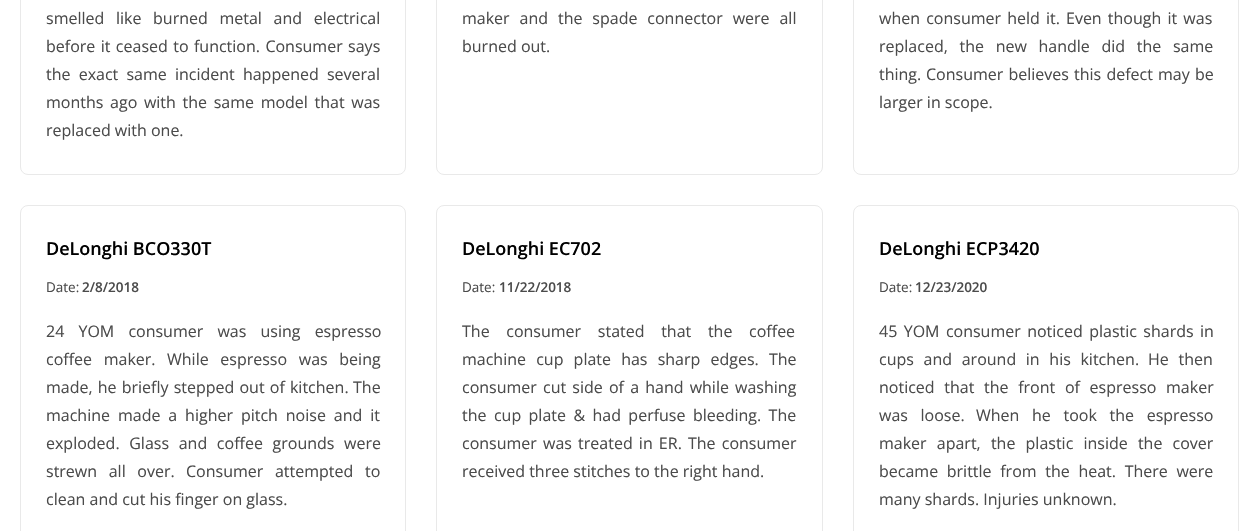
#include "include/core/SkBlurTypes.h"
#include "include/core/SkCanvas.h"
#include "include/core/SkData.h"
#include "include/core/SkFont.h"
#include "include/core/SkFontMgr.h"
#include "include/core/SkImage.h"
#include "include/core/SkMaskFilter.h"
#include "include/core/SkPaint.h"
#include "include/core/SkPathBuilder.h"
#include "include/core/SkTextBlob.h"
#include "include/effects/SkDashPathEffect.h"
#include "include/effects/SkGradientShader.h"
#include "include/utils/SkParsePath.h"

extern sk_sp<SkFontMgr> fontMgr;

void draw(SkCanvas* canvas) {
    SkPaint p;
    p.setAntiAlias(true);
    auto font = [&](const char* family, int weight, float size, bool italic = false) {
        SkFontStyle style(weight, SkFontStyle::kNormal_Width,
            italic ? SkFontStyle::kItalic_Slant : SkFontStyle::kUpright_Slant);
        SkFont result(fontMgr->matchFamilyStyle(family, style), size);
        result.setSubpixel(true);
        return result;
    };
    auto drawTracked = [&](const char* s, float x, float y, const SkFont& font, const SkPaint& ink, float letter, float word) {
        std::vector<SkGlyphID> glyphs(font.countText(s, strlen(s), SkTextEncoding::kUTF8));
        std::vector<float> xs(glyphs.size());
        font.textToGlyphs(s, strlen(s), SkTextEncoding::kUTF8, glyphs);
        font.getXPos(glyphs, xs, x);
        float extra = 0;
        for (size_t i = 0; i < glyphs.size(); i++) {
            xs[i] += extra;
            extra += letter + word * (glyphs[i] == font.unicharToGlyph(' '));
        }
        canvas->drawTextBlob(SkTextBlob::MakeFromPosHGlyphs(glyphs, xs, y, font), 0, 0, ink);
    };
    canvas->clear(0xFFFFFFFF);
    p.setStyle(SkPaint::kStroke_Style);
    p.setStrokeWidth(1);
    p.setColor(0xFFE9E9E9);
    canvas->drawRoundRect(SkRect::MakeLTRB(20.5f, -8.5f, 405.5f, 174.5f), 7.5f, 7.5f, p);
    auto font1 = font("Open Sans", 400, 16);
    p.setStyle(SkPaint::kFill_Style);
    p.setColor(0xFF4B4B4B);
    drawTracked("smelled like burned metal and electrical", 46, 24, font1, p, 0, 7.5f);
    drawTracked("before it ceased to function. Consumer says", 46, 52, font1, p, 0, 1.25f);
    drawTracked("the exact same incident happened several", 46, 80, font1, p, 0, 4);
    drawTracked("months ago with the same model that was", 46, 108, font1, p, 0, 2.5f);
    canvas->drawString("replaced with one.", 46, 136, font1, p);
    p.setStyle(SkPaint::kStroke_Style);
    p.setColor(0xFFE9E9E9);
    canvas->drawRoundRect(SkRect::MakeLTRB(436.5f, -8.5f, 822.5f, 174.5f), 7.5f, 7.5f, p);
    p.setStyle(SkPaint::kFill_Style);
    p.setColor(0xFF4B4B4B);
    drawTracked("maker and the spade connector were all", 462, 24, font1, p, 0, 5.75f);
    canvas->drawString("burned out.", 462, 52, font1, p);
    p.setStyle(SkPaint::kStroke_Style);
    p.setColor(0xFFE9E9E9);
    canvas->drawRoundRect(SkRect::MakeLTRB(853.5f, -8.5f, 1238.5f, 174.5f), 7.5f, 7.5f, p);
    p.setStyle(SkPaint::kFill_Style);
    p.setColor(0xFF4B4B4B);
    drawTracked("when consumer held it.", 879, 24, font1, p, 0, 2);
    drawTracked("Even though it was", 1066, 24, font1, p, 0, 2);
    drawTracked("replaced, the new handle did the same", 879, 52, font1, p, 0, 7.5f);
    canvas->drawString("thing.", 879, 80, font1, p);
    drawTracked("Consumer believes this defect may be", 926, 80, font1, p, 0, 1);
    canvas->drawString("larger in scope.", 879, 108, font1, p);
    p.setStyle(SkPaint::kStroke_Style);
    p.setColor(0xFFE9E9E9);
    canvas->drawRoundRect(SkRect::MakeLTRB(20.5f, 205.5f, 405.5f, 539.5f), 7.5f, 7.5f, p);
    auto font2 = font("Open Sans", 600, 18);
    p.setStyle(SkPaint::kFill_Style);
    p.setColor(0xFF000000);
    canvas->drawString("DeLonghi BCO330T", 46, 255, font2, p);
    auto font3 = font("Open Sans", 400, 13.5f);
    p.setColor(0xFF4B4B4B);
    canvas->drawString("Date:", 46, 292, font3, p);
    auto font4 = font("Open Sans", 600, 13.5f);
    canvas->drawString("2/8/2018", 82, 292, font4, p);
    drawTracked("24 YOM consumer was using espresso", 46, 337, font1, p, 0, 10);
    drawTracked("coffee maker.", 46, 365, font1, p, 0, 7.5f);
    drawTracked("While espresso was being", 167, 365, font1, p, 0, 7.5f);
    drawTracked("made, he briefly stepped out of kitchen.", 46, 393, font1, p, 0, 1);
    canvas->drawString("The", 353, 393, font1, p);
    drawTracked("machine made a higher pitch noise and it", 46, 421, font1, p, 0, 3.75f);
    drawTracked("exploded. Glass and coffee grounds were", 46, 449, font1, p, 0, 5.5f);
    drawTracked("strewn all over.", 46, 477, font1, p, 0, 7.5f);
    drawTracked("Consumer attempted to", 186, 477, font1, p, 0, 7.5f);
    canvas->drawString("clean and cut his finger on glass.", 46, 505, font1, p);
    p.setStyle(SkPaint::kStroke_Style);
    p.setColor(0xFFE9E9E9);
    canvas->drawRoundRect(SkRect::MakeLTRB(436.5f, 205.5f, 822.5f, 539.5f), 7.5f, 7.5f, p);
    p.setStyle(SkPaint::kFill_Style);
    p.setColor(0xFF000000);
    canvas->drawString("DeLonghi EC702", 462, 255, font2, p);
    p.setColor(0xFF4B4B4B);
    canvas->drawString("Date:", 462, 292, font3, p);
    canvas->drawString("11/22/2018", 499, 292, font4, p);
    drawTracked("The consumer stated that the coffee", 462, 337, font1, p, 0, 12.5f);
    drawTracked("machine cup plate has sharp edges. The", 462, 365, font1, p, 0, 6);
    drawTracked("consumer cut side of a hand while washing", 462, 393, font1, p, 0, 2);
    drawTracked("the cup plate & had perfuse bleeding. The", 462, 421, font1, p, 0, 3.25f);
    drawTracked("consumer was treated in ER. The consumer", 462, 449, font1, p, 0, 2);
    canvas->drawString("received three stitches to the right hand.", 462, 477, font1, p);
    p.setStyle(SkPaint::kStroke_Style);
    p.setColor(0xFFE9E9E9);
    canvas->drawRoundRect(SkRect::MakeLTRB(853.5f, 205.5f, 1238.5f, 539.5f), 7.5f, 7.5f, p);
    p.setStyle(SkPaint::kFill_Style);
    p.setColor(0xFF000000);
    canvas->drawString("DeLonghi ECP3420", 879, 255, font2, p);
    p.setColor(0xFF4B4B4B);
    canvas->drawString("Date:", 879, 292, font3, p);
    canvas->drawString("12/23/2020", 915, 292, font4, p);
    drawTracked("45 YOM consumer noticed plastic shards in", 879, 337, font1, p, 0, 2.25f);
    {
        const struct { const char* s; float x, y; } items[] = {
            {"cups and around in his kitchen.", 879, 365},
            {"He then", 1148, 365},
            {"noticed that the front of espresso maker", 879, 393},
        };
        for (auto [s, x, y] : items) {
            drawTracked(s, x, y, font1, p, 0, 5.5f);
        }
    }
    drawTracked("was loose.", 879, 421, font1, p, 0, 8.5f);
    drawTracked("When he took the espresso", 976, 421, font1, p, 0, 8.5f);
    drawTracked("maker apart, the plastic inside the cover", 879, 449, font1, p, 0, 6);
    drawTracked("became brittle from the heat. There were", 879, 477, font1, p, 0, 4.5f);
    canvas->drawString("many shards. Injuries unknown.", 879, 505, font1, p);
}
